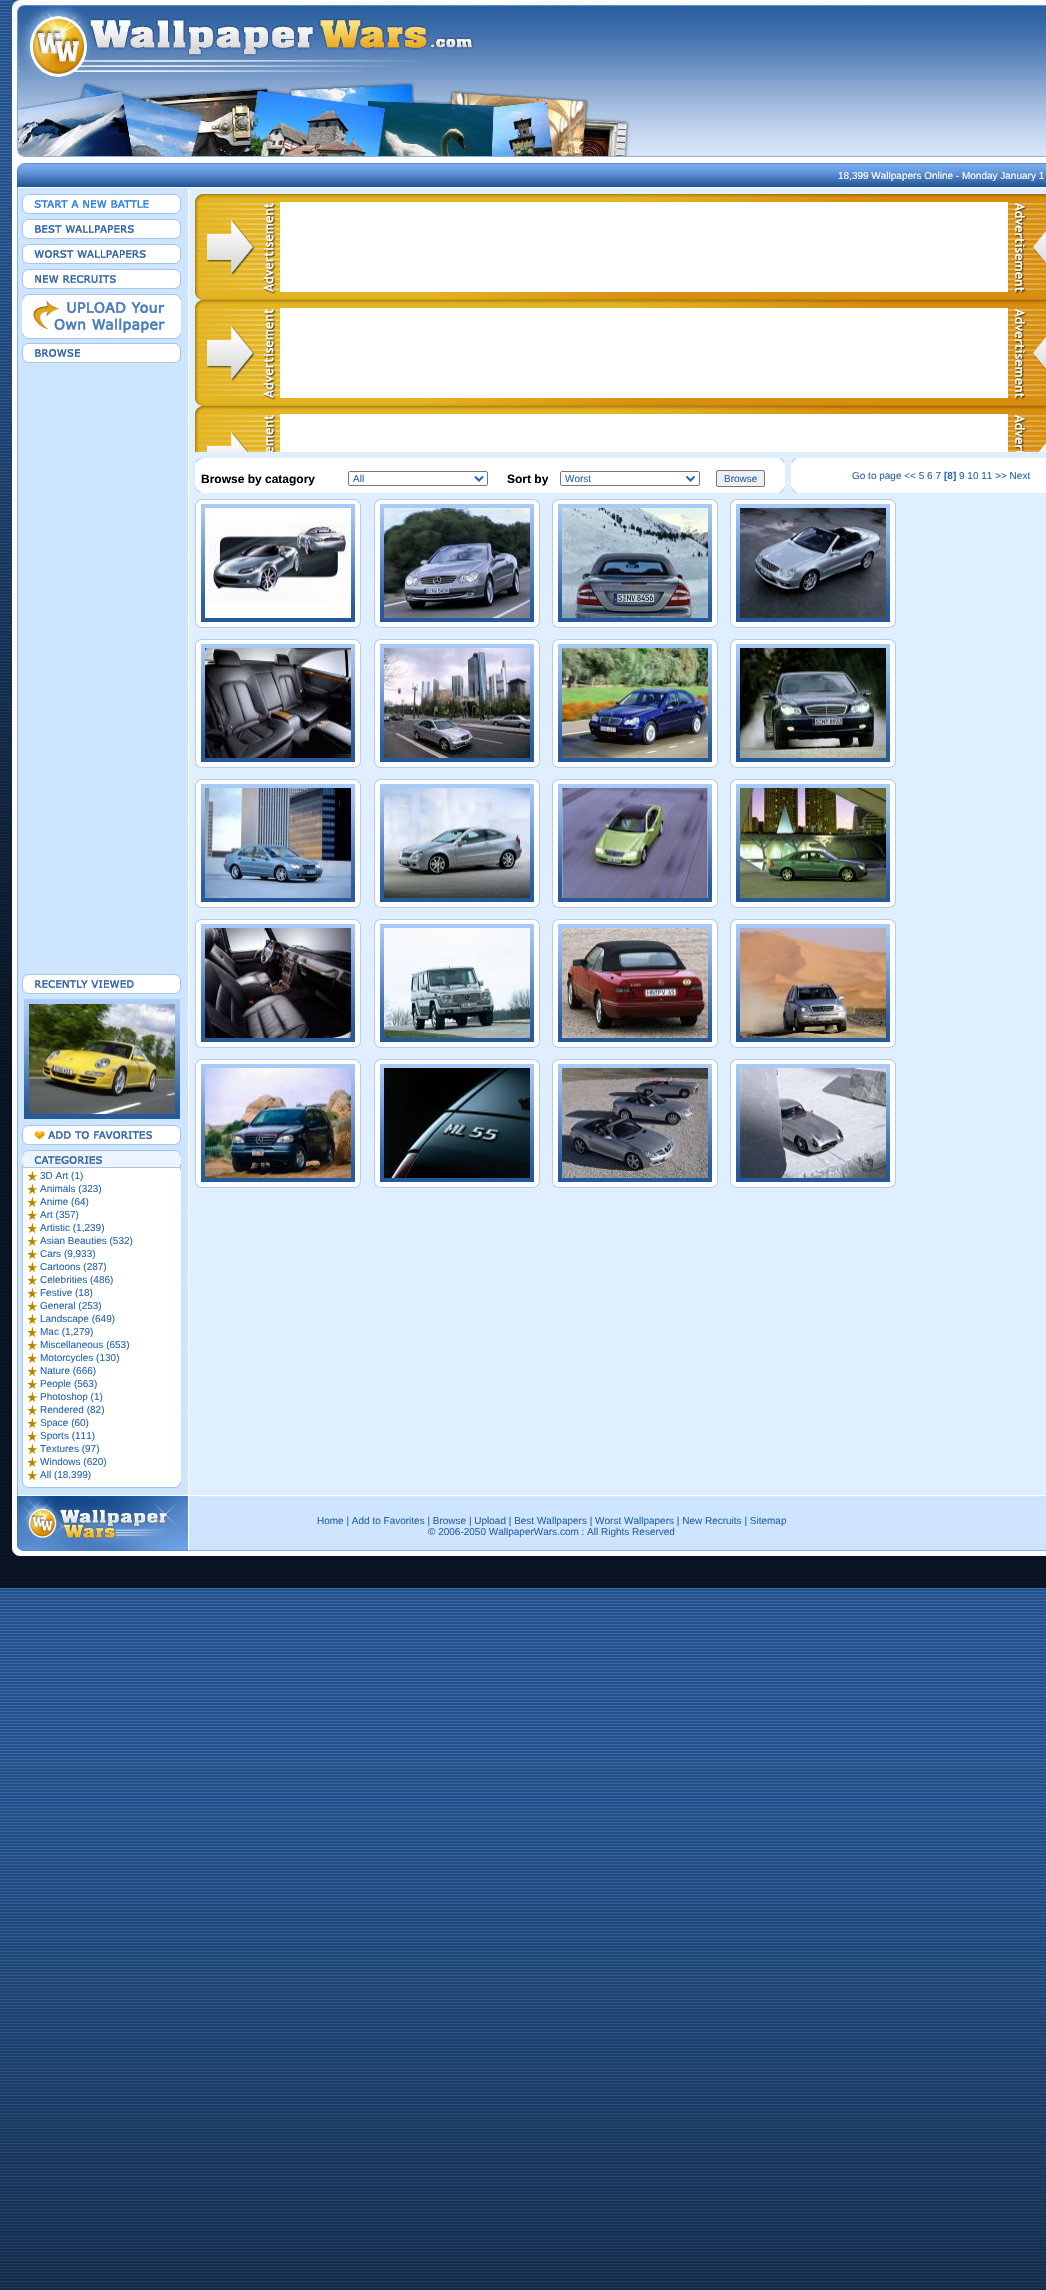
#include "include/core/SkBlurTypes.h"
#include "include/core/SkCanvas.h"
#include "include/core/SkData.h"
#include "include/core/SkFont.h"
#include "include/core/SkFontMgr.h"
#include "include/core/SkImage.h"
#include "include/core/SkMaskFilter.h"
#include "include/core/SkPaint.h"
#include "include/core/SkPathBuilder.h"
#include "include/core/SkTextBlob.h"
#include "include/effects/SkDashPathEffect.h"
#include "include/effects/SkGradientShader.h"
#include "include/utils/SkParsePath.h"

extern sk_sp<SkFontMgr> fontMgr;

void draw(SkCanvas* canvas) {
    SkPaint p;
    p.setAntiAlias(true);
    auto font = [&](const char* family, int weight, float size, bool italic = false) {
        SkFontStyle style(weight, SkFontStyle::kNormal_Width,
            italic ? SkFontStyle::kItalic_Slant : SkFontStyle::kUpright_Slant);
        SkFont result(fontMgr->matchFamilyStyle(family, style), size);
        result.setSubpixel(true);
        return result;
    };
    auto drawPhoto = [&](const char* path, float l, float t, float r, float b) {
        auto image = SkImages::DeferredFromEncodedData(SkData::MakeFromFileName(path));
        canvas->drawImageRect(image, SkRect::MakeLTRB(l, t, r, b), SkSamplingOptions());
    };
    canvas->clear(0xFFFFFFFF);
    drawPhoto("media/1.png", 0, 0, 1046, 2290);
    drawPhoto("media/2.png", 12, 0, 143, 157);
    drawPhoto("media/3.png", 143, 0, 319, 157);
    drawPhoto("media/4.png", 319, 0, 629, 157);
    drawPhoto("media/5.png", 629, 0, 1046, 157);
    p.setColor(0xFFDFEFFF);
    canvas->drawRect(SkRect::MakeLTRB(189, 188, 1046, 1495), p);
    drawPhoto("media/6.png", 12, 188, 189, 1495);
    p.setColor(0xFFFFFFFF);
    canvas->drawRect(SkRect::MakeLTRB(12, 157, 1046, 163), p);
    drawPhoto("media/7.png", 12, 163, 26, 188);
    drawPhoto("media/8.png", 26, 163, 188, 188);
    drawPhoto("media/9.png", 188, 163, 1046, 188);
    auto font1 = font("Liberation Sans", 400, 10);
    canvas->drawString("18,399 Wallpapers Online - Monday January 1", 838, 179, font1, p);
    drawPhoto("media/10.png", 195, 194, 1046, 452);
    drawPhoto("media/11.png", 195, 458, 201, 463);
    canvas->drawRect(SkRect::MakeLTRB(201, 458, 779, 463), p);
    drawPhoto("media/12.png", 779, 458, 785, 463);
    canvas->drawRect(SkRect::MakeLTRB(195, 463, 785, 487), p);
    auto font2 = font("Liberation Sans", 700, 12);
    p.setColor(0xFF000000);
    canvas->drawString("Browse by catagory", 201, 483, font2, p);
    p.setStyle(SkPaint::kStroke_Style);
    p.setStrokeWidth(1);
    p.setColor(0xFF767676);
    canvas->drawRoundRect(SkRect::MakeLTRB(348.5f, 471.5f, 487.5f, 485.5f), 1.5f, 1.5f, p);
    p.setStrokeWidth(2);
    p.setColor(0xFF2564B0);
    canvas->drawPath(SkPathBuilder().moveTo(475, 476.5f).lineTo(479, 480.5f).lineTo(483, 476.5f).detach(), p);
    p.setStyle(SkPaint::kFill_Style);
    canvas->drawString("All", 353, 482, font1, p);
    p.setColor(0xFF000000);
    canvas->drawString("Sort by", 507, 483, font2, p);
    p.setStyle(SkPaint::kStroke_Style);
    p.setStrokeWidth(1);
    p.setColor(0xFF767676);
    canvas->drawRoundRect(SkRect::MakeLTRB(560.5f, 471.5f, 699.5f, 485.5f), 1.5f, 1.5f, p);
    p.setStrokeWidth(2);
    p.setColor(0xFF2564B0);
    canvas->drawPath(SkPathBuilder().moveTo(686.5f, 476.5f).lineTo(690.5f, 480.5f).lineTo(694.5f, 476.5f).detach(), p);
    p.setStyle(SkPaint::kFill_Style);
    canvas->drawString("Worst", 565, 482, font1, p);
    p.setColor(0xFFEFEFEF);
    canvas->drawRoundRect(SkRect::MakeLTRB(716.5f, 470.5f, 764.5f, 486.5f), 1.5f, 1.5f, p);
    p.setStyle(SkPaint::kStroke_Style);
    p.setStrokeWidth(1);
    p.setColor(0xFF767676);
    canvas->drawRoundRect(SkRect::MakeLTRB(716.5f, 470.5f, 764.5f, 486.5f), 1.5f, 1.5f, p);
    p.setStyle(SkPaint::kFill_Style);
    p.setColor(0xFF2564B0);
    canvas->drawString("Browse", 724, 482, font1, p);
    drawPhoto("media/13.png", 195, 487, 201, 493);
    p.setColor(0xFFFFFFFF);
    canvas->drawRect(SkRect::MakeLTRB(201, 487, 779, 493), p);
    drawPhoto("media/14.png", 779, 487, 785, 493);
    drawPhoto("media/11.png", 791, 458, 797, 463);
    canvas->drawRect(SkRect::MakeLTRB(797, 458, 1046, 463), p);
    canvas->drawRect(SkRect::MakeLTRB(791, 463, 1046, 487), p);
    p.setColor(0xFF2564B0);
    canvas->drawString("Go to page << 5 6 7", 852, 479, font1, p);
    auto font3 = font("Liberation Sans", 700, 10);
    canvas->drawString("[8]", 944, 479, font3, p);
    canvas->drawString("9 10 11 >> Next", 959, 479, font1, p);
    drawPhoto("media/13.png", 791, 487, 797, 493);
    p.setColor(0xFFFFFFFF);
    canvas->drawRect(SkRect::MakeLTRB(797, 487, 1046, 493), p);
    drawPhoto("media/15.png", 195, 499, 361, 628);
    drawPhoto("media/16.png", 205, 508, 351, 618);
    drawPhoto("media/15.png", 374, 499, 540, 628);
    drawPhoto("media/17.png", 384, 508, 530, 618);
    drawPhoto("media/15.png", 552, 499, 718, 628);
    drawPhoto("media/18.png", 562, 508, 708, 618);
    drawPhoto("media/15.png", 730, 499, 896, 628);
    drawPhoto("media/19.png", 740, 508, 886, 618);
    drawPhoto("media/15.png", 195, 639, 361, 768);
    drawPhoto("media/20.png", 205, 648, 351, 758);
    drawPhoto("media/15.png", 374, 639, 540, 768);
    drawPhoto("media/21.png", 384, 648, 530, 758);
    drawPhoto("media/15.png", 552, 639, 718, 768);
    drawPhoto("media/22.png", 562, 648, 708, 758);
    drawPhoto("media/15.png", 730, 639, 896, 768);
    drawPhoto("media/23.png", 740, 648, 886, 758);
    drawPhoto("media/15.png", 195, 779, 361, 908);
    drawPhoto("media/24.png", 205, 788, 351, 898);
    drawPhoto("media/15.png", 374, 779, 540, 908);
    drawPhoto("media/25.png", 384, 788, 530, 898);
    drawPhoto("media/15.png", 552, 779, 718, 908);
    drawPhoto("media/26.png", 562, 788, 708, 898);
    drawPhoto("media/15.png", 730, 779, 896, 908);
    drawPhoto("media/27.png", 740, 788, 886, 898);
    drawPhoto("media/15.png", 195, 919, 361, 1048);
    drawPhoto("media/28.png", 205, 928, 351, 1038);
    drawPhoto("media/15.png", 374, 919, 540, 1048);
    drawPhoto("media/29.png", 384, 928, 530, 1038);
    drawPhoto("media/15.png", 552, 919, 718, 1048);
    drawPhoto("media/30.png", 562, 928, 708, 1038);
    drawPhoto("media/15.png", 730, 919, 896, 1048);
    drawPhoto("media/31.png", 740, 928, 886, 1038);
    drawPhoto("media/15.png", 195, 1059, 361, 1188);
    drawPhoto("media/32.png", 205, 1068, 351, 1178);
    drawPhoto("media/15.png", 374, 1059, 540, 1188);
    drawPhoto("media/33.png", 384, 1068, 530, 1178);
    drawPhoto("media/15.png", 552, 1059, 718, 1188);
    drawPhoto("media/34.png", 562, 1068, 708, 1178);
    drawPhoto("media/15.png", 730, 1059, 896, 1188);
    drawPhoto("media/35.png", 740, 1068, 886, 1178);
    drawPhoto("media/36.png", 22, 194, 181, 214);
    drawPhoto("media/37.png", 34, 200, 149, 208);
    drawPhoto("media/36.png", 22, 219, 181, 239);
    drawPhoto("media/38.png", 35, 225, 134, 233);
    drawPhoto("media/36.png", 22, 244, 181, 264);
    drawPhoto("media/39.png", 34, 250, 146, 258);
    drawPhoto("media/36.png", 22, 269, 181, 289);
    drawPhoto("media/40.png", 35, 275, 116, 283);
    drawPhoto("media/41.png", 22, 294, 181, 300);
    canvas->drawRect(SkRect::MakeLTRB(22, 300, 181, 333), p);
    drawPhoto("media/42.png", 33, 300, 165, 333);
    drawPhoto("media/43.png", 22, 333, 181, 339);
    drawPhoto("media/36.png", 22, 343, 181, 363);
    drawPhoto("media/44.png", 35, 349, 80, 357);
    drawPhoto("media/36.png", 22, 974, 181, 994);
    drawPhoto("media/45.png", 35, 980, 134, 988);
    drawPhoto("media/46.png", 24, 999, 180, 1119);
    drawPhoto("media/47.png", 29, 1004, 175, 1114);
    drawPhoto("media/36.png", 22, 1125, 181, 1145);
    drawPhoto("media/48.png", 34, 1131, 152, 1139);
    drawPhoto("media/49.png", 22, 1150, 181, 1156);
    p.setColor(0xFFECF5FE);
    canvas->drawRect(SkRect::MakeLTRB(22, 1156, 181, 1164), p);
    drawPhoto("media/50.png", 34, 1156, 102, 1164);
    drawPhoto("media/51.png", 22, 1164, 181, 1170);
    p.setColor(0xFFFFFFFF);
    canvas->drawRect(SkRect::MakeLTRB(37, 1170, 181, 1482), p);
    drawPhoto("media/52.png", 22, 1170, 37, 1183);
    p.setColor(0xFF2564B0);
    canvas->drawString("3D Art (1)", 40, 1179, font1, p);
    drawPhoto("media/52.png", 22, 1183, 37, 1196);
    canvas->drawString("Animals (323)", 40, 1192, font1, p);
    drawPhoto("media/52.png", 22, 1196, 37, 1209);
    canvas->drawString("Anime (64)", 40, 1205, font1, p);
    drawPhoto("media/52.png", 22, 1209, 37, 1222);
    canvas->drawString("Art (357)", 40, 1218, font1, p);
    drawPhoto("media/52.png", 22, 1222, 37, 1235);
    canvas->drawString("Artistic (1,239)", 40, 1231, font1, p);
    drawPhoto("media/52.png", 22, 1235, 37, 1248);
    canvas->drawString("Asian Beauties (532)", 40, 1244, font1, p);
    drawPhoto("media/52.png", 22, 1248, 37, 1261);
    canvas->drawString("Cars (9,933)", 40, 1257, font1, p);
    drawPhoto("media/52.png", 22, 1261, 37, 1274);
    canvas->drawString("Cartoons (287)", 40, 1270, font1, p);
    drawPhoto("media/52.png", 22, 1274, 37, 1287);
    canvas->drawString("Celebrities (486)", 40, 1283, font1, p);
    drawPhoto("media/52.png", 22, 1287, 37, 1300);
    canvas->drawString("Festive (18)", 40, 1296, font1, p);
    drawPhoto("media/52.png", 22, 1300, 37, 1313);
    canvas->drawString("General (253)", 40, 1309, font1, p);
    drawPhoto("media/52.png", 22, 1313, 37, 1326);
    canvas->drawString("Landscape (649)", 40, 1322, font1, p);
    drawPhoto("media/52.png", 22, 1326, 37, 1339);
    canvas->drawString("Mac (1,279)", 40, 1335, font1, p);
    drawPhoto("media/52.png", 22, 1339, 37, 1352);
    canvas->drawString("Miscellaneous (653)", 40, 1348, font1, p);
    drawPhoto("media/52.png", 22, 1352, 37, 1365);
    canvas->drawString("Motorcycles (130)", 40, 1361, font1, p);
    drawPhoto("media/52.png", 22, 1365, 37, 1378);
    canvas->drawString("Nature (666)", 40, 1374, font1, p);
    drawPhoto("media/52.png", 22, 1378, 37, 1391);
    canvas->drawString("People (563)", 40, 1387, font1, p);
    drawPhoto("media/52.png", 22, 1391, 37, 1404);
    canvas->drawString("Photoshop (1)", 40, 1400, font1, p);
    drawPhoto("media/52.png", 22, 1404, 37, 1417);
    canvas->drawString("Rendered (82)", 40, 1413, font1, p);
    drawPhoto("media/52.png", 22, 1417, 37, 1430);
    canvas->drawString("Space (60)", 40, 1426, font1, p);
    drawPhoto("media/52.png", 22, 1430, 37, 1443);
    canvas->drawString("Sports (111)", 40, 1439, font1, p);
    drawPhoto("media/52.png", 22, 1443, 37, 1456);
    canvas->drawString("Textures (97)", 40, 1452, font1, p);
    drawPhoto("media/52.png", 22, 1456, 37, 1469);
    canvas->drawString("Windows (620)", 40, 1465, font1, p);
    drawPhoto("media/52.png", 22, 1469, 37, 1482);
    canvas->drawString("All (18,399)", 40, 1478, font1, p);
    drawPhoto("media/43.png", 22, 1482, 181, 1488);
    drawPhoto("media/53.png", 12, 1495, 188, 1556);
    drawPhoto("media/54.png", 188, 1495, 915, 1556);
    canvas->drawString("Home | Add to Favorites | Browse | Upload | Best Wallpapers | Worst Wallpapers | New Recruits | Sitemap", 317, 1524, font1, p);
    canvas->drawString("© 2006-2050 WallpaperWars.com : All Rights Reserved", 428, 1535, font1, p);
    drawPhoto("media/55.png", 915, 1495, 1046, 1556);
}
